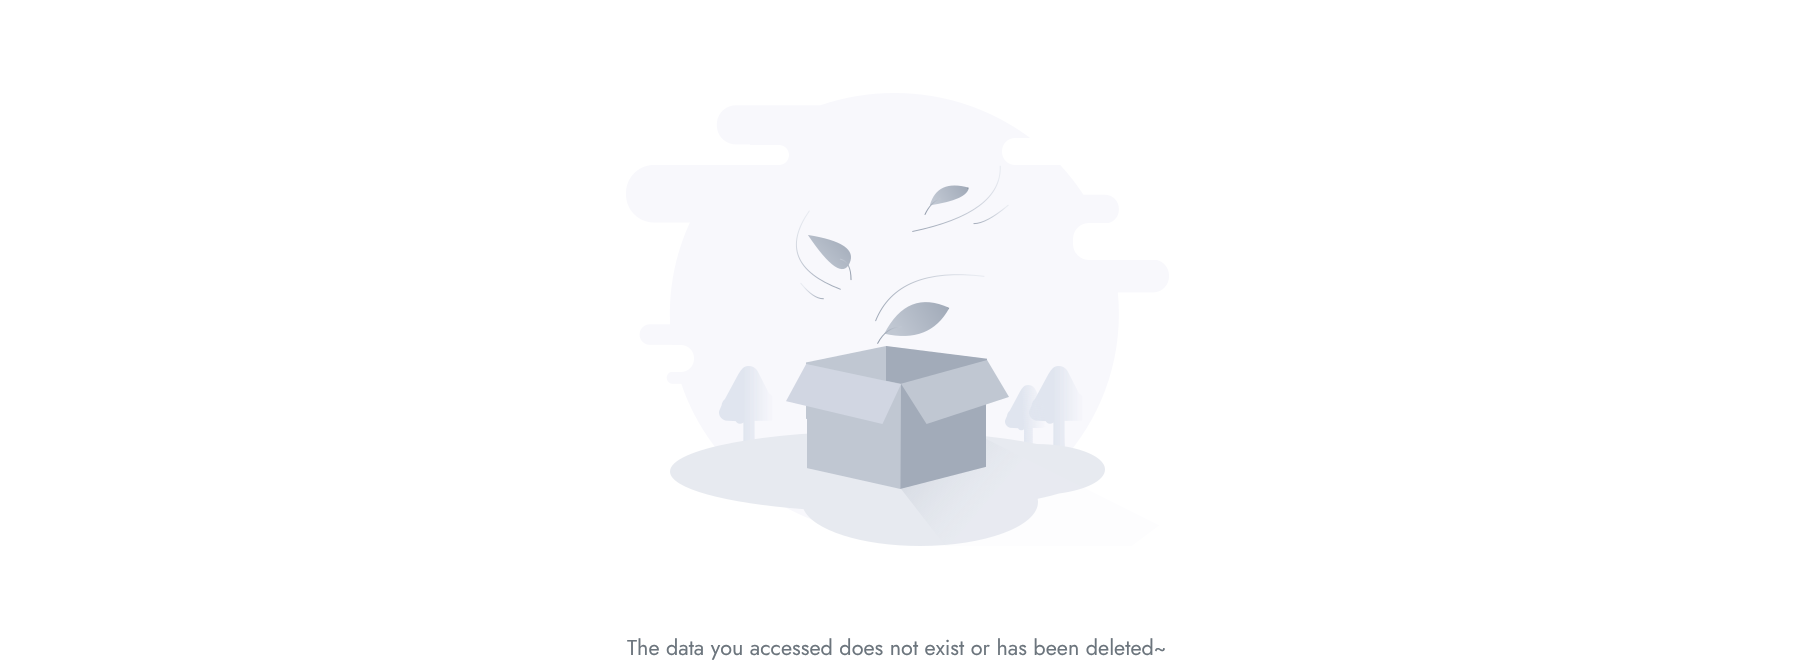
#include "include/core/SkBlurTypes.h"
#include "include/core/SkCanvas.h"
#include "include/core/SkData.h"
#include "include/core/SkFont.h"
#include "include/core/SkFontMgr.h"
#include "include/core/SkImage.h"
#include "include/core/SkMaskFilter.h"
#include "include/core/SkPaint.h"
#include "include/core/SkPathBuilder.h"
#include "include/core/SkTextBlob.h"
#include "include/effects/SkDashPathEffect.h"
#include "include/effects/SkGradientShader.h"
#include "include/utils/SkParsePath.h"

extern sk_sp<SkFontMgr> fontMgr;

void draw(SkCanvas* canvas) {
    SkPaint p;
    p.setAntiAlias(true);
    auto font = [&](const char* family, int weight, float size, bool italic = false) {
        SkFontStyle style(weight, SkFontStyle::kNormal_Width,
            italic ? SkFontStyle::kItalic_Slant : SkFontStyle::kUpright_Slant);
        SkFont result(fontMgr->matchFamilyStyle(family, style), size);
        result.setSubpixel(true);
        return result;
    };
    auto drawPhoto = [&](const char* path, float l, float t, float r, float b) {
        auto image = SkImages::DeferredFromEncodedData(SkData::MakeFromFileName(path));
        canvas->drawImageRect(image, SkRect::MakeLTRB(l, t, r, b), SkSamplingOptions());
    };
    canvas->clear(0xFFFFFFFF);
    drawPhoto("media/1.png", 626, 93, 1169, 546);
    auto font1 = font("Jost", 400, 21.6f);
    p.setColor(0xFF6C757D);
    canvas->drawString("The data you accessed does not exist or has been deleted~", 627, 655, font1, p);
}
